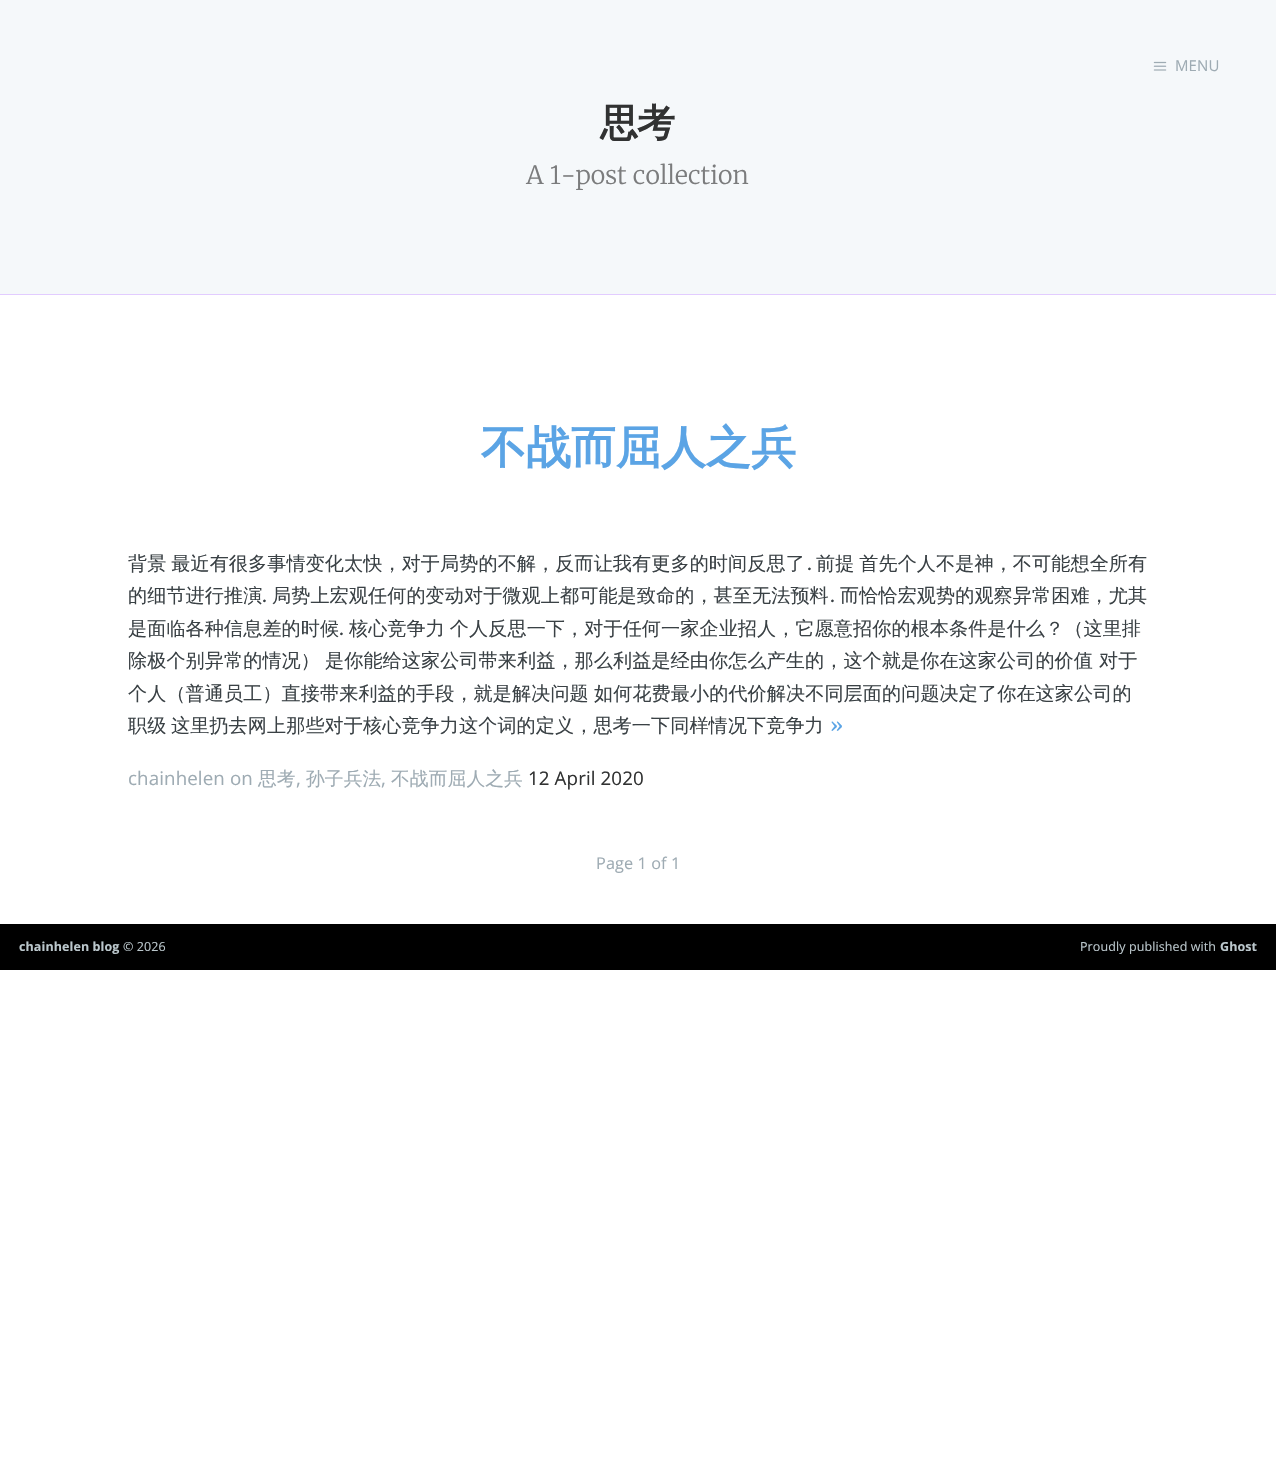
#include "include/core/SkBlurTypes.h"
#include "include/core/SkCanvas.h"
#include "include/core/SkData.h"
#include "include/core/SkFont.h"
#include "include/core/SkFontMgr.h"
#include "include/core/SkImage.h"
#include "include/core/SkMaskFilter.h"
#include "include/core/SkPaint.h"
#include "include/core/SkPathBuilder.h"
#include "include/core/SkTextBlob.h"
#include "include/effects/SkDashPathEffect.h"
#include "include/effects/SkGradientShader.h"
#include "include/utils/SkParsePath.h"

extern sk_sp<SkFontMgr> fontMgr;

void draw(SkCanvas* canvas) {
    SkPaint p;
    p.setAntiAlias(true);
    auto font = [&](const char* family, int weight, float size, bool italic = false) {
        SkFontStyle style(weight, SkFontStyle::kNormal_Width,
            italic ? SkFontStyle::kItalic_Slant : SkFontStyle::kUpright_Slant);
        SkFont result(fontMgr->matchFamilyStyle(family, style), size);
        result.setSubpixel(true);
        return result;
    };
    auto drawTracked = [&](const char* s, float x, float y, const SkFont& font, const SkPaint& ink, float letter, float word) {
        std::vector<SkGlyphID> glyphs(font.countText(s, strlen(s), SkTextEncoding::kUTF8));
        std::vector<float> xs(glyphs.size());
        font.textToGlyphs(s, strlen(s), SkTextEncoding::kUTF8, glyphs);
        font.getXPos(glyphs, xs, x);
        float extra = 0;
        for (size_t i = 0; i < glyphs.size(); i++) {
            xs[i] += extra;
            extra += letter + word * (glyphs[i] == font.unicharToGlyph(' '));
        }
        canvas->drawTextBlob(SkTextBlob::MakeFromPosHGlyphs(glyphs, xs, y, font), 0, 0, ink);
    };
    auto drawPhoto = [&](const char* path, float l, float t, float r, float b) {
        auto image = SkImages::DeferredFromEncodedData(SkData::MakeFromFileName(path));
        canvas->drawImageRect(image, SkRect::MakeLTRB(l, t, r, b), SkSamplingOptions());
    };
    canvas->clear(0xFFFFFFFF);
    p.setColor(0xFFF5F8FA);
    canvas->drawRect(SkRect::MakeLTRB(0, 0, 1276, 294), p);
    drawPhoto("media/1.png", 1153, 61, 1167, 71);
    auto font1 = font("Open Sans", 400, 15);
    p.setColor(0xFF9EABB3);
    drawTracked("MENU", 1175, 71, font1, p, 0.1f, 0);
    p.setColor(0xFFE2CCFF);
    canvas->drawRect(SkRect::MakeLTRB(0, 294, 1276, 295), p);
    auto font2 = font("WenQuanYi Zen Hei", 700, 38);
    p.setColor(0xFF313232);
    drawTracked("思考", 600, 136, font2, p, -1, 0);
    auto font3 = font("Merriweather", 300, 25);
    p.setColor(0xFF7B7C7D);
    drawTracked("A 1-post collection", 526, 184, font3, p, 0.1f, 0);
    auto font4 = font("WenQuanYi Zen Hei", 700, 45);
    p.setColor(0xFF5BA4E5);
    canvas->drawString("不战而屈人之兵", 481, 463, font4, p);
    auto font5 = font("WenQuanYi Zen Hei", 500, 19.1f);
    p.setColor(0xFF3A4145);
    drawTracked("背景 最近有很多事情变化太快，对于局势的不解，反而让我有更多的时间反思了", 128, 570, font5, p, 0.1f, -1);
    auto font6 = font("Merriweather", 400, 19.1f);
    drawTracked(".", 807, 570, font6, p, 0.1f, 0);
    drawTracked("前提 首先个人不是神，不可能想全所有", 816, 570, font5, p, 0.1f, -1);
    drawTracked("的细节进行推演", 128, 602, font5, p, 0.1f, 0);
    drawTracked(".", 262, 602, font6, p, 0.1f, 0);
    drawTracked("局势上宏观任何的变动对于微观上都可能是致命的，甚至无法预料", 272, 602, font5, p, 0.1f, 0);
    drawTracked(".", 830, 602, font6, p, 0.1f, 0);
    drawTracked("而恰恰宏观势的观察异常困难，尤其", 840, 602, font5, p, 0.1f, 0);
    drawTracked("是面临各种信息差的时候", 128, 635, font5, p, 0.1f, 0);
    drawTracked(".", 339, 635, font6, p, 0.1f, 0);
    drawTracked("核心竞争力 个人反思一下，对于任何一家企业招人，它愿意招你的根本条件是什么？（这里排", 349, 635, font5, p, 0.1f, -1);
    {
        const struct { const char* s; float x, y; } items[] = {
            {"除极个别异常的情况）", 128, 667},
            {"是你能给这家公司带来利益，那么利益是经由你怎么产生的，这个就是你在这家公司的价值", 325, 667},
            {"对于", 1099, 667},
            {"个人（普通员工）直接带来利益的手段，就是解决问题", 128, 700},
            {"如何花费最小的代价解决不同层面的问题决定了你在这家公司的", 594, 700},
            {"职级", 128, 732},
            {"这里扔去网上那些对于核心竞争力这个词的定义，思考一下同样情况下竞争力", 171, 732},
        };
        for (auto [s, x, y] : items) {
            drawTracked(s, x, y, font5, p, 0.1f, 0);
        }
    }
    p.setColor(0xFF5BA4E5);
    drawTracked("»", 830, 732, font6, p, 0.1f, 0);
    auto font7 = font("Open Sans", 400, 18.75f);
    p.setColor(0xFF9EABB3);
    drawTracked("chainhelen on", 128, 785, font7, p, 0.1f, 0);
    auto font8 = font("WenQuanYi Zen Hei", 500, 18.75f);
    drawTracked("思考", 258, 785, font8, p, 0.1f, 0);
    drawTracked(",", 296, 785, font7, p, 0.1f, 0);
    drawTracked("孙子兵法", 306, 785, font8, p, 0.1f, 0);
    drawTracked(",", 381, 785, font7, p, 0.1f, 0);
    drawTracked("不战而屈人之兵", 391, 785, font8, p, 0.1f, 0);
    p.setColor(0xFF313232);
    drawTracked("12 April 2020", 528, 785, font7, p, 0.1f, 0);
    auto font9 = font("Open Sans", 400, 16.25f);
    p.setColor(0xFF9EABB3);
    drawTracked("Page 1 of 1", 596, 869, font9, p, 0.1f, 0);
    p.setColor(0xFF000000);
    canvas->drawRect(SkRect::MakeLTRB(0, 924, 1276, 970), p);
    auto font10 = font("Open Sans", 700, 12.5f);
    p.setColor(0xFFBBC7CC);
    drawTracked("chainhelen blog", 19, 951, font10, p, 0.1f, 0);
    auto font11 = font("Open Sans", 400, 12.5f);
    drawTracked("© 2026", 123, 951, font11, p, 0.1f, 0);
    drawTracked("Proudly published with", 1080, 951, font11, p, 0.1f, 0);
    drawTracked("Ghost", 1220, 951, font10, p, 0.1f, 0);
}
